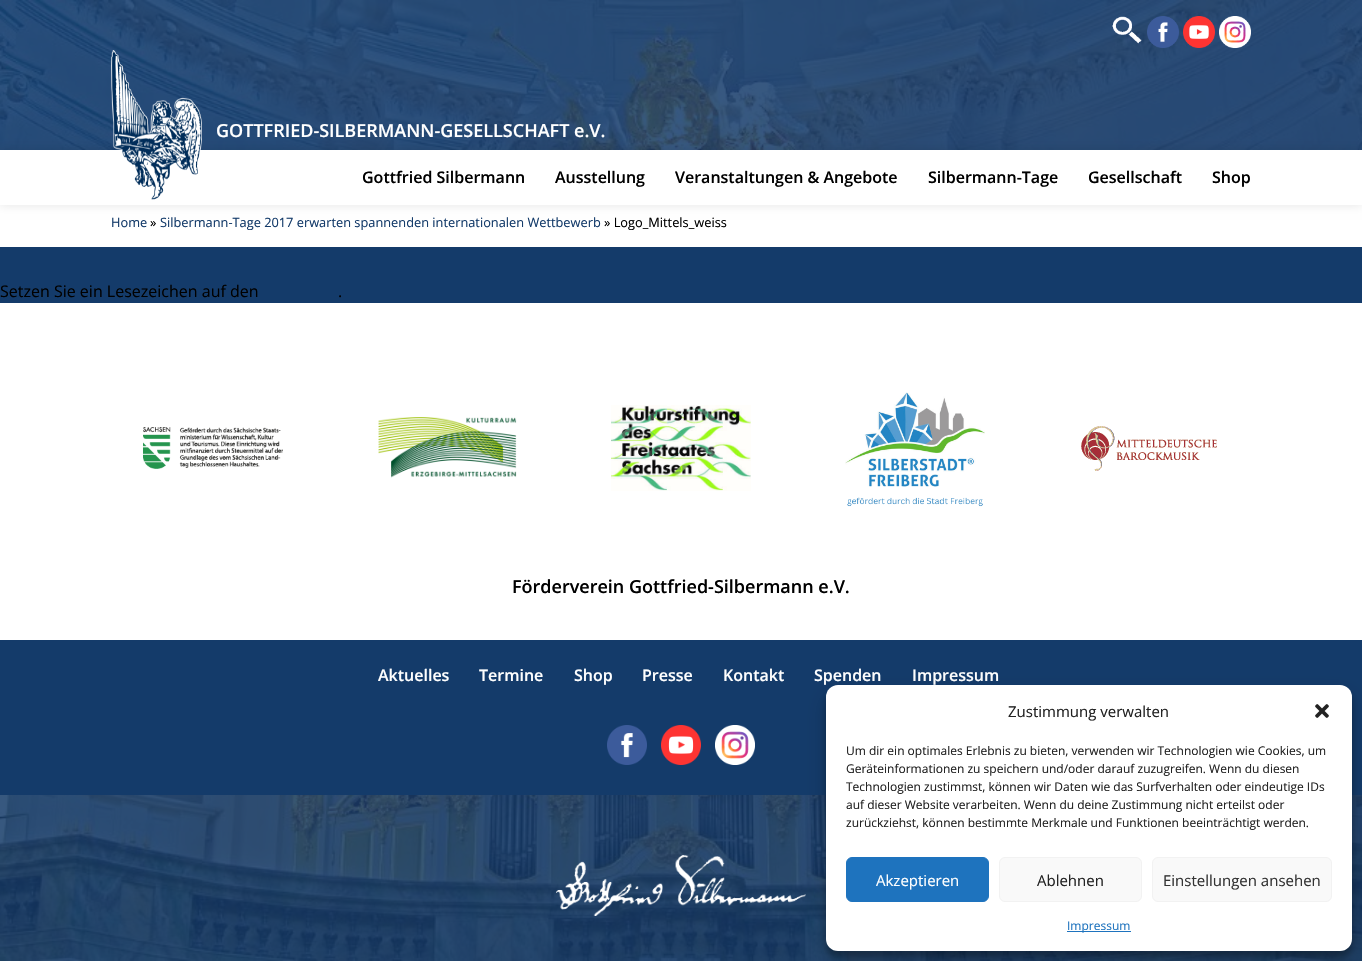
#include "include/core/SkBlurTypes.h"
#include "include/core/SkCanvas.h"
#include "include/core/SkData.h"
#include "include/core/SkFont.h"
#include "include/core/SkFontMgr.h"
#include "include/core/SkImage.h"
#include "include/core/SkMaskFilter.h"
#include "include/core/SkPaint.h"
#include "include/core/SkPathBuilder.h"
#include "include/core/SkTextBlob.h"
#include "include/effects/SkDashPathEffect.h"
#include "include/effects/SkGradientShader.h"
#include "include/utils/SkParsePath.h"

extern sk_sp<SkFontMgr> fontMgr;

void draw(SkCanvas* canvas) {
    SkPaint p;
    p.setAntiAlias(true);
    auto font = [&](const char* family, int weight, float size, bool italic = false) {
        SkFontStyle style(weight, SkFontStyle::kNormal_Width,
            italic ? SkFontStyle::kItalic_Slant : SkFontStyle::kUpright_Slant);
        SkFont result(fontMgr->matchFamilyStyle(family, style), size);
        result.setSubpixel(true);
        return result;
    };
    auto drawPhoto = [&](const char* path, float l, float t, float r, float b) {
        auto image = SkImages::DeferredFromEncodedData(SkData::MakeFromFileName(path));
        canvas->drawImageRect(image, SkRect::MakeLTRB(l, t, r, b), SkSamplingOptions());
    };
    canvas->clear(0xFF143B6A);
    drawPhoto("media/1.png", 0, 0, 1362, 150);
    p.setColor(0xD9143B6A);
    canvas->drawRect(SkRect::MakeLTRB(0, 0, 1362, 150), p);
    drawPhoto("media/2.png", 1112, 16, 1142, 44);
    drawPhoto("media/3.png", 1147, 16, 1179, 48);
    drawPhoto("media/4.png", 1183, 16, 1215, 48);
    drawPhoto("media/5.png", 1219, 16, 1251, 48);
    p.setColor(0xFFFFFFFF);
    canvas->drawRect(SkRect::MakeLTRB(0, 205, 1362, 247), p);
    p.setColor(0x1A000000);
    p.setMaskFilter(SkMaskFilter::MakeBlur(kNormal_SkBlurStyle, 5));
    canvas->drawRect(SkRect::MakeLTRB(0, 150, 1362, 205), p);
    p.setMaskFilter(nullptr);
    p.setColor(0xFFFFFFFF);
    canvas->drawRect(SkRect::MakeLTRB(0, 150, 1362, 205), p);
    drawPhoto("media/6.png", 111, 50, 202, 200);
    auto font1 = font("Open Sans", 600, 18);
    canvas->drawString("GOTTFRIED-SILBERMANN-GESELLSCHAFT e.V.", 216, 137, font1, p);
    auto font2 = font("Open Sans", 600, 16);
    p.setColor(0xFF000000);
    {
        const struct { const char* s; float x, y; } items[] = {
            {"Gottfried Silbermann", 362, 183},
            {"Ausstellung", 555, 183},
            {"Veranstaltungen & Angebote", 675, 183},
            {"Silbermann-Tage", 928, 183},
            {"Gesellschaft", 1088, 183},
            {"Shop", 1212, 183},
        };
        for (auto [s, x, y] : items) {
            canvas->drawString(s, x, y, font2, p);
        }
    }
    auto font3 = font("Open Sans", 400, 12.8f);
    p.setColor(0xFF143B6A);
    canvas->drawString("Home", 111, 227, font3, p);
    p.setColor(0xFF000000);
    canvas->drawString("»", 150, 227, font3, p);
    p.setColor(0xFF143B6A);
    canvas->drawString("Silbermann-Tage 2017 erwarten spannenden internationalen Wettbewerb", 160, 227, font3, p);
    p.setColor(0xFF000000);
    canvas->drawString("» Logo_Mittels_weiss", 604, 227, font3, p);
    auto font4 = font("Open Sans", 400, 16);
    canvas->drawString("Setzen Sie ein Lesezeichen auf den", 0, 297, font4, p);
    canvas->drawString(".", 338, 297, font4, p);
    p.setColor(0xFFFFFFFF);
    canvas->drawRect(SkRect::MakeLTRB(0, 303, 1362, 640), p);
    drawPhoto("media/7.png", 143, 427, 283, 469);
    drawPhoto("media/8.png", 378, 417, 517, 478);
    drawPhoto("media/9.png", 611, 405, 751, 491);
    drawPhoto("media/10.png", 845, 392, 985, 507);
    drawPhoto("media/11.png", 1081, 426, 1217, 471);
    p.setColor(0xFF000000);
    canvas->drawString("Förderverein Gottfried-Silbermann e.V.", 512, 593, font1, p);
    p.setColor(0xFFFFFFFF);
    {
        const struct { const char* s; float x, y; } items[] = {
            {"Aktuelles", 378, 681},
            {"Termine", 479, 681},
            {"Shop", 574, 681},
            {"Presse", 642, 681},
            {"Kontakt", 723, 681},
            {"Spenden", 814, 681},
            {"Impressum", 912, 681},
        };
        for (auto [s, x, y] : items) {
            canvas->drawString(s, x, y, font2, p);
        }
    }
    drawPhoto("media/12.png", 607, 725, 647, 765);
    drawPhoto("media/13.png", 661, 725, 701, 765);
    drawPhoto("media/14.png", 715, 725, 755, 765);
    drawPhoto("media/15.png", 0, 795, 1362, 961);
    drawPhoto("media/16.png", 556, 855, 806, 916);
    p.setColor(0x3B000000);
    p.setMaskFilter(SkMaskFilter::MakeBlur(kNormal_SkBlurStyle, 3));
    canvas->drawRoundRect(SkRect::MakeLTRB(826, 691, 1352, 957), 12, 12, p);
    p.setMaskFilter(nullptr);
    p.setColor(0x30000000);
    p.setMaskFilter(SkMaskFilter::MakeBlur(kNormal_SkBlurStyle, 10));
    canvas->drawRoundRect(SkRect::MakeLTRB(826, 695, 1352, 961), 12, 12, p);
    p.setMaskFilter(nullptr);
    p.setColor(0xFFFFFFFF);
    canvas->drawRoundRect(SkRect::MakeLTRB(826, 685, 1352, 951), 12, 12, p);
    auto font5 = font("Open Sans", 400, 15);
    p.setColor(0xFF222222);
    canvas->drawString("Zustimmung verwalten", 1008, 717, font5, p);
    drawPhoto("media/17.png", 1315, 704, 1329, 718);
    auto font6 = font("Open Sans", 400, 12);
    {
        const struct { const char* s; float x, y; } items[] = {
            {"Um dir ein optimales Erlebnis zu bieten, verwenden wir Technologien wie Cookies, um", 846, 755},
            {"Geräteinformationen zu speichern und/oder darauf zuzugreifen. Wenn du diesen", 846, 773},
            {"Technologien zustimmst, können wir Daten wie das Surfverhalten oder eindeutige IDs", 846, 791},
            {"auf dieser Website verarbeiten. Wenn du deine Zustimmung nicht erteilst oder", 846, 809},
            {"zurückziehst, können bestimmte Merkmale und Funktionen beeinträchtigt werden.", 846, 827},
        };
        for (auto [s, x, y] : items) {
            canvas->drawString(s, x, y, font6, p);
        }
    }
    p.setColor(0xFF1E73BE);
    canvas->drawRoundRect(SkRect::MakeLTRB(846.5f, 857.5f, 988.5f, 901.5f), 5.5f, 5.5f, p);
    p.setStyle(SkPaint::kStroke_Style);
    p.setStrokeWidth(1);
    canvas->drawRoundRect(SkRect::MakeLTRB(846.5f, 857.5f, 988.5f, 901.5f), 5.5f, 5.5f, p);
    p.setStyle(SkPaint::kFill_Style);
    p.setColor(0xFFFFFFFF);
    canvas->drawString("Akzeptieren", 876, 886, font5, p);
    p.setColor(0xFFF9F9F9);
    canvas->drawRoundRect(SkRect::MakeLTRB(999.5f, 857.5f, 1141.5f, 901.5f), 5.5f, 5.5f, p);
    p.setStyle(SkPaint::kStroke_Style);
    p.setColor(0xFFF2F2F2);
    canvas->drawRoundRect(SkRect::MakeLTRB(999.5f, 857.5f, 1141.5f, 901.5f), 5.5f, 5.5f, p);
    p.setStyle(SkPaint::kFill_Style);
    p.setColor(0xFF222222);
    canvas->drawString("Ablehnen", 1037, 886, font5, p);
    p.setColor(0xFFF9F9F9);
    canvas->drawRoundRect(SkRect::MakeLTRB(1152.5f, 857.5f, 1331.5f, 901.5f), 5.5f, 5.5f, p);
    p.setStyle(SkPaint::kStroke_Style);
    p.setColor(0xFFF2F2F2);
    canvas->drawRoundRect(SkRect::MakeLTRB(1152.5f, 857.5f, 1331.5f, 901.5f), 5.5f, 5.5f, p);
    p.setStyle(SkPaint::kFill_Style);
    p.setColor(0xFF333333);
    canvas->drawString("Einstellungen ansehen", 1163, 886, font5, p);
    p.setColor(0xFF1E73BE);
    canvas->drawRect(SkRect::MakeLTRB(1067, 931, 1131, 932), p);
    canvas->drawString("Impressum", 1067, 930, font6, p);
}
